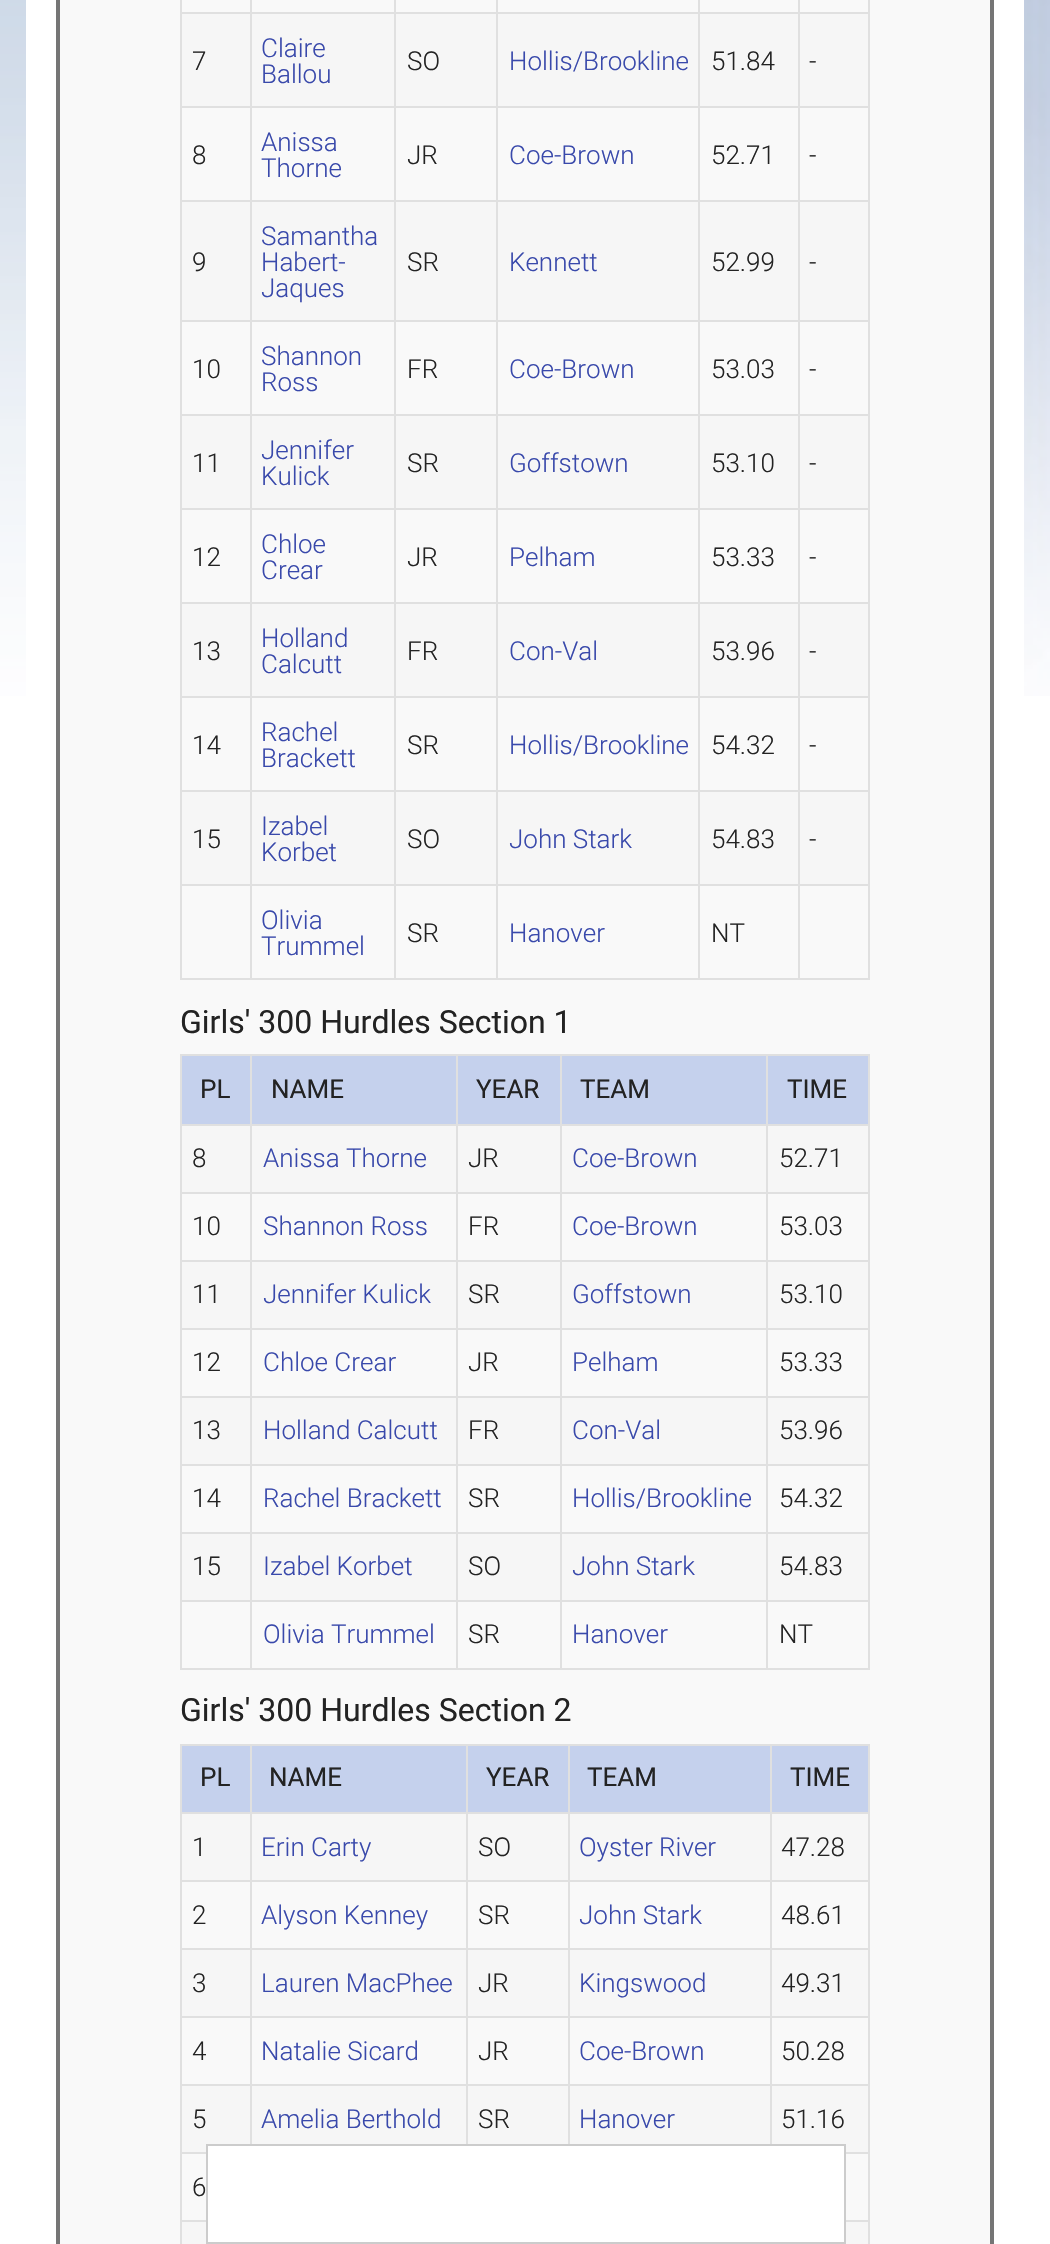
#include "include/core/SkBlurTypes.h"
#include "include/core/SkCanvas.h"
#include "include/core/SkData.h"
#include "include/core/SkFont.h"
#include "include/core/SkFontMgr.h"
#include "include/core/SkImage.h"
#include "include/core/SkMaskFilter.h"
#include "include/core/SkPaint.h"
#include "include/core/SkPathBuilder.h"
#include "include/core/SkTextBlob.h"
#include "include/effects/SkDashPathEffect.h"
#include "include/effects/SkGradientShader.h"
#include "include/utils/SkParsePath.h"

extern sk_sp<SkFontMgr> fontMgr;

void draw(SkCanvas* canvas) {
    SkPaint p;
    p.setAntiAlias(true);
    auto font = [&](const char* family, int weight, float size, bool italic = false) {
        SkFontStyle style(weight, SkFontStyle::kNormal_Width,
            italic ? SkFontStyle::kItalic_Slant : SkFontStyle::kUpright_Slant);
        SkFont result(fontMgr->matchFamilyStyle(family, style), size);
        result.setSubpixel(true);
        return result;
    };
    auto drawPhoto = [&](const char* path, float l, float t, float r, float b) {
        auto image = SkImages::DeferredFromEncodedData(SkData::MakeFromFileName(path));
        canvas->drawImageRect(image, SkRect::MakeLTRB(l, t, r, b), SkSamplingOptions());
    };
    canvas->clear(0xFFFFFFFF);
    drawPhoto("media/1.png", 0, 0, 1050, 696);
    p.setColor(0xFFFFFFFF);
    canvas->drawRect(SkRect::MakeLTRB(26, 0, 1024, 696), p);
    p.setStyle(SkPaint::kStroke_Style);
    p.setStrokeWidth(4);
    p.setColor(0xFF757575);
    canvas->drawRect(SkRect::MakeLTRB(58, -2, 992, 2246), p);
    p.setStyle(SkPaint::kFill_Style);
    {
        const struct { float l, t, r, b; SkColor color; } items[] = {
            {60, 0, 990, 2244, 0xFFF9F9F9},
            {798, 12, 870, 14, 0xFFE0E0E0},
            {182, 14, 868, 106, 0xFFF6F6F6},
            {798, 106, 870, 108, 0xFFE0E0E0},
            {798, 200, 870, 202, 0xFFE0E0E0},
            {182, 202, 868, 320, 0xFFF6F6F6},
            {798, 320, 870, 322, 0xFFE0E0E0},
            {798, 414, 870, 416, 0xFFE0E0E0},
            {182, 416, 868, 508, 0xFFF6F6F6},
            {798, 508, 870, 510, 0xFFE0E0E0},
            {798, 602, 870, 604, 0xFFE0E0E0},
            {182, 604, 868, 696, 0xFFF6F6F6},
            {798, 696, 870, 698, 0xFFE0E0E0},
            {798, 790, 870, 792, 0xFFE0E0E0},
            {182, 792, 868, 884, 0xFFF6F6F6},
            {798, 884, 870, 886, 0xFFE0E0E0},
            {868, 884, 870, 980, 0xFFE0E0E0},
            {798, 978, 870, 980, 0xFFE0E0E0},
            {798, 884, 800, 980, 0xFFE0E0E0},
            {698, 884, 800, 886, 0xFFE0E0E0},
            {798, 790, 800, 886, 0xFFE0E0E0},
            {698, 790, 800, 792, 0xFFE0E0E0},
            {798, 696, 800, 792, 0xFFE0E0E0},
            {698, 696, 800, 698, 0xFFE0E0E0},
            {798, 602, 800, 698, 0xFFE0E0E0},
            {698, 602, 800, 604, 0xFFE0E0E0},
            {798, 508, 800, 604, 0xFFE0E0E0},
            {698, 508, 800, 510, 0xFFE0E0E0},
            {798, 414, 800, 510, 0xFFE0E0E0},
            {698, 414, 800, 416, 0xFFE0E0E0},
            {798, 320, 800, 416, 0xFFE0E0E0},
            {698, 320, 800, 322, 0xFFE0E0E0},
            {798, 200, 800, 322, 0xFFE0E0E0},
            {698, 200, 800, 202, 0xFFE0E0E0},
            {798, 106, 800, 202, 0xFFE0E0E0},
            {698, 106, 800, 108, 0xFFE0E0E0},
            {798, 12, 800, 108, 0xFFE0E0E0},
            {698, 12, 800, 14, 0xFFE0E0E0},
            {698, 978, 800, 980, 0xFFE0E0E0},
            {698, 884, 700, 980, 0xFFE0E0E0},
            {496, 884, 700, 886, 0xFFE0E0E0},
            {698, 790, 700, 886, 0xFFE0E0E0},
            {496, 790, 700, 792, 0xFFE0E0E0},
            {698, 696, 700, 792, 0xFFE0E0E0},
            {496, 696, 700, 698, 0xFFE0E0E0},
            {698, 602, 700, 698, 0xFFE0E0E0},
            {496, 602, 700, 604, 0xFFE0E0E0},
            {698, 508, 700, 604, 0xFFE0E0E0},
            {496, 508, 700, 510, 0xFFE0E0E0},
            {698, 414, 700, 510, 0xFFE0E0E0},
            {496, 414, 700, 416, 0xFFE0E0E0},
            {698, 320, 700, 416, 0xFFE0E0E0},
            {496, 320, 700, 322, 0xFFE0E0E0},
            {698, 200, 700, 322, 0xFFE0E0E0},
            {496, 200, 700, 202, 0xFFE0E0E0},
            {698, 106, 700, 202, 0xFFE0E0E0},
            {496, 106, 700, 108, 0xFFE0E0E0},
            {698, 12, 700, 108, 0xFFE0E0E0},
            {496, 12, 700, 14, 0xFFE0E0E0},
            {496, 978, 700, 980, 0xFFE0E0E0},
            {496, 884, 498, 980, 0xFFE0E0E0},
            {394, 884, 498, 886, 0xFFE0E0E0},
            {496, 790, 498, 886, 0xFFE0E0E0},
            {394, 790, 498, 792, 0xFFE0E0E0},
            {496, 696, 498, 792, 0xFFE0E0E0},
            {394, 696, 498, 698, 0xFFE0E0E0},
            {496, 602, 498, 698, 0xFFE0E0E0},
            {394, 602, 498, 604, 0xFFE0E0E0},
            {496, 508, 498, 604, 0xFFE0E0E0},
            {394, 508, 498, 510, 0xFFE0E0E0},
            {496, 414, 498, 510, 0xFFE0E0E0},
            {394, 414, 498, 416, 0xFFE0E0E0},
            {496, 320, 498, 416, 0xFFE0E0E0},
            {394, 320, 498, 322, 0xFFE0E0E0},
            {496, 200, 498, 322, 0xFFE0E0E0},
            {394, 200, 498, 202, 0xFFE0E0E0},
            {496, 106, 498, 202, 0xFFE0E0E0},
            {394, 106, 498, 108, 0xFFE0E0E0},
            {496, 12, 498, 108, 0xFFE0E0E0},
            {394, 12, 498, 14, 0xFFE0E0E0},
            {394, 978, 498, 980, 0xFFE0E0E0},
            {394, 884, 396, 980, 0xFFE0E0E0},
            {250, 884, 396, 886, 0xFFE0E0E0},
            {394, 790, 396, 886, 0xFFE0E0E0},
            {250, 790, 396, 792, 0xFFE0E0E0},
            {394, 696, 396, 792, 0xFFE0E0E0},
            {250, 696, 396, 698, 0xFFE0E0E0},
            {394, 602, 396, 698, 0xFFE0E0E0},
            {250, 602, 396, 604, 0xFFE0E0E0},
            {394, 508, 396, 604, 0xFFE0E0E0},
            {250, 508, 396, 510, 0xFFE0E0E0},
            {394, 414, 396, 510, 0xFFE0E0E0},
            {250, 414, 396, 416, 0xFFE0E0E0},
            {394, 320, 396, 416, 0xFFE0E0E0},
            {250, 320, 396, 322, 0xFFE0E0E0},
            {394, 200, 396, 322, 0xFFE0E0E0},
            {250, 200, 396, 202, 0xFFE0E0E0},
            {394, 106, 396, 202, 0xFFE0E0E0},
            {250, 106, 396, 108, 0xFFE0E0E0},
            {394, 12, 396, 108, 0xFFE0E0E0},
            {250, 12, 396, 14, 0xFFE0E0E0},
            {250, 978, 396, 980, 0xFFE0E0E0},
            {250, 884, 252, 980, 0xFFE0E0E0},
            {180, 884, 252, 886, 0xFFE0E0E0},
            {250, 790, 252, 886, 0xFFE0E0E0},
            {180, 790, 252, 792, 0xFFE0E0E0},
            {250, 696, 252, 792, 0xFFE0E0E0},
            {180, 696, 252, 698, 0xFFE0E0E0},
            {250, 602, 252, 698, 0xFFE0E0E0},
            {180, 602, 252, 604, 0xFFE0E0E0},
            {250, 508, 252, 604, 0xFFE0E0E0},
            {180, 508, 252, 510, 0xFFE0E0E0},
            {250, 414, 252, 510, 0xFFE0E0E0},
            {180, 414, 252, 416, 0xFFE0E0E0},
            {250, 320, 252, 416, 0xFFE0E0E0},
            {180, 320, 252, 322, 0xFFE0E0E0},
            {250, 200, 252, 322, 0xFFE0E0E0},
            {180, 200, 252, 202, 0xFFE0E0E0},
            {250, 106, 252, 202, 0xFFE0E0E0},
            {180, 106, 252, 108, 0xFFE0E0E0},
            {250, 12, 252, 108, 0xFFE0E0E0},
            {180, 12, 252, 14, 0xFFE0E0E0},
            {250, 0, 252, 14, 0xFFE0E0E0},
            {394, 0, 396, 14, 0xFFE0E0E0},
            {496, 0, 498, 14, 0xFFE0E0E0},
            {698, 0, 700, 14, 0xFFE0E0E0},
            {798, 0, 800, 14, 0xFFE0E0E0},
            {180, 978, 252, 980, 0xFFE0E0E0},
            {180, 884, 182, 980, 0xFFE0E0E0},
            {180, 790, 182, 886, 0xFFE0E0E0},
            {180, 696, 182, 792, 0xFFE0E0E0},
            {180, 602, 182, 698, 0xFFE0E0E0},
            {180, 508, 182, 604, 0xFFE0E0E0},
            {180, 414, 182, 510, 0xFFE0E0E0},
            {180, 320, 182, 416, 0xFFE0E0E0},
            {180, 200, 182, 322, 0xFFE0E0E0},
            {180, 106, 182, 202, 0xFFE0E0E0},
            {180, 0, 182, 108, 0xFFE0E0E0},
        };
        for (auto [l, t, r, b, color] : items) {
            p.setColor(color);
            canvas->drawRect(SkRect::MakeLTRB(l, t, r, b), p);
        }
    }
    auto font1 = font("Roboto", 300, 26);
    p.setColor(0xFF232323);
    canvas->drawString("7", 192, 70, font1, p);
    p.setColor(0xFF3949AB);
    canvas->drawString("Claire", 261, 57, font1, p);
    canvas->drawString("Ballou", 261, 83, font1, p);
    p.setColor(0xFF232323);
    canvas->drawString("SO", 407, 70, font1, p);
    p.setColor(0xFF3949AB);
    canvas->drawString("Hollis/Brookline", 509, 70, font1, p);
    p.setColor(0xFF232323);
    canvas->drawString("51.84", 711, 70, font1, p);
    {
        const struct { float l, t, r, b; SkColor color; } items[] = {
            {868, 790, 870, 886, 0xFFE0E0E0},
            {868, 696, 870, 792, 0xFFE0E0E0},
            {868, 602, 870, 698, 0xFFE0E0E0},
            {868, 508, 870, 604, 0xFFE0E0E0},
            {868, 414, 870, 510, 0xFFE0E0E0},
            {868, 320, 870, 416, 0xFFE0E0E0},
            {868, 200, 870, 322, 0xFFE0E0E0},
            {868, 106, 870, 202, 0xFFE0E0E0},
            {868, 0, 870, 108, 0xFFE0E0E0},
        };
        for (auto [l, t, r, b, color] : items) {
            p.setColor(color);
            canvas->drawRect(SkRect::MakeLTRB(l, t, r, b), p);
        }
    }
    p.setColor(0xFF232323);
    canvas->drawString("-", 809, 70, font1, p);
    canvas->drawString("8", 192, 164, font1, p);
    p.setColor(0xFF3949AB);
    canvas->drawString("Anissa", 261, 151, font1, p);
    canvas->drawString("Thorne", 261, 177, font1, p);
    p.setColor(0xFF232323);
    canvas->drawString("JR", 407, 164, font1, p);
    p.setColor(0xFF3949AB);
    canvas->drawString("Coe-Brown", 509, 164, font1, p);
    p.setColor(0xFF232323);
    {
        const struct { const char* s; float x, y; } items[] = {
            {"52.71", 711, 164},
            {"-", 809, 164},
            {"9", 192, 271},
        };
        for (auto [s, x, y] : items) {
            canvas->drawString(s, x, y, font1, p);
        }
    }
    p.setColor(0xFF3949AB);
    {
        const struct { const char* s; float x, y; } items[] = {
            {"Samantha", 261, 245},
            {"Habert-", 261, 271},
            {"Jaques", 261, 297},
        };
        for (auto [s, x, y] : items) {
            canvas->drawString(s, x, y, font1, p);
        }
    }
    p.setColor(0xFF232323);
    canvas->drawString("SR", 407, 271, font1, p);
    p.setColor(0xFF3949AB);
    canvas->drawString("Kennett", 509, 271, font1, p);
    p.setColor(0xFF232323);
    {
        const struct { const char* s; float x, y; } items[] = {
            {"52.99", 711, 271},
            {"-", 809, 271},
            {"10", 192, 378},
        };
        for (auto [s, x, y] : items) {
            canvas->drawString(s, x, y, font1, p);
        }
    }
    p.setColor(0xFF3949AB);
    canvas->drawString("Shannon", 261, 365, font1, p);
    canvas->drawString("Ross", 261, 391, font1, p);
    p.setColor(0xFF232323);
    canvas->drawString("FR", 407, 378, font1, p);
    p.setColor(0xFF3949AB);
    canvas->drawString("Coe-Brown", 509, 378, font1, p);
    p.setColor(0xFF232323);
    {
        const struct { const char* s; float x, y; } items[] = {
            {"53.03", 711, 378},
            {"-", 809, 378},
            {"11", 192, 472},
        };
        for (auto [s, x, y] : items) {
            canvas->drawString(s, x, y, font1, p);
        }
    }
    p.setColor(0xFF3949AB);
    canvas->drawString("Jennifer", 261, 459, font1, p);
    canvas->drawString("Kulick", 261, 485, font1, p);
    p.setColor(0xFF232323);
    canvas->drawString("SR", 407, 472, font1, p);
    p.setColor(0xFF3949AB);
    canvas->drawString("Goffstown", 509, 472, font1, p);
    p.setColor(0xFF232323);
    {
        const struct { const char* s; float x, y; } items[] = {
            {"53.10", 711, 472},
            {"-", 809, 472},
            {"12", 192, 566},
        };
        for (auto [s, x, y] : items) {
            canvas->drawString(s, x, y, font1, p);
        }
    }
    p.setColor(0xFF3949AB);
    canvas->drawString("Chloe", 261, 553, font1, p);
    canvas->drawString("Crear", 261, 579, font1, p);
    p.setColor(0xFF232323);
    canvas->drawString("JR", 407, 566, font1, p);
    p.setColor(0xFF3949AB);
    canvas->drawString("Pelham", 509, 566, font1, p);
    p.setColor(0xFF232323);
    {
        const struct { const char* s; float x, y; } items[] = {
            {"53.33", 711, 566},
            {"-", 809, 566},
            {"13", 192, 660},
        };
        for (auto [s, x, y] : items) {
            canvas->drawString(s, x, y, font1, p);
        }
    }
    p.setColor(0xFF3949AB);
    canvas->drawString("Holland", 261, 647, font1, p);
    canvas->drawString("Calcutt", 261, 673, font1, p);
    p.setColor(0xFF232323);
    canvas->drawString("FR", 407, 660, font1, p);
    p.setColor(0xFF3949AB);
    canvas->drawString("Con-Val", 509, 660, font1, p);
    p.setColor(0xFF232323);
    {
        const struct { const char* s; float x, y; } items[] = {
            {"53.96", 711, 660},
            {"-", 809, 660},
            {"14", 192, 754},
        };
        for (auto [s, x, y] : items) {
            canvas->drawString(s, x, y, font1, p);
        }
    }
    p.setColor(0xFF3949AB);
    canvas->drawString("Rachel", 261, 741, font1, p);
    canvas->drawString("Brackett", 261, 767, font1, p);
    p.setColor(0xFF232323);
    canvas->drawString("SR", 407, 754, font1, p);
    p.setColor(0xFF3949AB);
    canvas->drawString("Hollis/Brookline", 509, 754, font1, p);
    p.setColor(0xFF232323);
    {
        const struct { const char* s; float x, y; } items[] = {
            {"54.32", 711, 754},
            {"-", 809, 754},
            {"15", 192, 848},
        };
        for (auto [s, x, y] : items) {
            canvas->drawString(s, x, y, font1, p);
        }
    }
    p.setColor(0xFF3949AB);
    canvas->drawString("Izabel", 261, 835, font1, p);
    canvas->drawString("Korbet", 261, 861, font1, p);
    p.setColor(0xFF232323);
    canvas->drawString("SO", 407, 848, font1, p);
    p.setColor(0xFF3949AB);
    canvas->drawString("John Stark", 509, 848, font1, p);
    p.setColor(0xFF232323);
    canvas->drawString("54.83", 711, 848, font1, p);
    canvas->drawString("-", 809, 848, font1, p);
    p.setColor(0xFF3949AB);
    canvas->drawString("Olivia", 261, 929, font1, p);
    canvas->drawString("Trummel", 261, 955, font1, p);
    p.setColor(0xFF232323);
    canvas->drawString("SR", 407, 942, font1, p);
    p.setColor(0xFF3949AB);
    canvas->drawString("Hanover", 509, 942, font1, p);
    p.setColor(0xFF232323);
    canvas->drawString("NT", 711, 942, font1, p);
    auto font2 = font("Roboto", 400, 32);
    canvas->drawString("Girls' 300 Hurdles Section 1", 180, 1033, font2, p);
    {
        const struct { float l, t, r, b; SkColor color; } items[] = {
            {182, 1056, 250, 1124, 0xFFC5D1ED},
            {766, 1054, 870, 1056, 0xFFE0E0E0},
            {766, 1124, 870, 1126, 0xFFE0E0E0},
            {182, 1126, 868, 1192, 0xFFF6F6F6},
            {766, 1192, 870, 1194, 0xFFE0E0E0},
            {766, 1260, 870, 1262, 0xFFE0E0E0},
            {182, 1262, 868, 1328, 0xFFF6F6F6},
            {766, 1328, 870, 1330, 0xFFE0E0E0},
            {766, 1396, 870, 1398, 0xFFE0E0E0},
            {182, 1398, 868, 1464, 0xFFF6F6F6},
            {766, 1464, 870, 1466, 0xFFE0E0E0},
            {766, 1532, 870, 1534, 0xFFE0E0E0},
            {182, 1534, 868, 1600, 0xFFF6F6F6},
            {766, 1600, 870, 1602, 0xFFE0E0E0},
            {868, 1600, 870, 1670, 0xFFE0E0E0},
            {766, 1668, 870, 1670, 0xFFE0E0E0},
            {766, 1600, 768, 1670, 0xFFE0E0E0},
            {560, 1600, 768, 1602, 0xFFE0E0E0},
            {766, 1532, 768, 1602, 0xFFE0E0E0},
            {560, 1532, 768, 1534, 0xFFE0E0E0},
            {766, 1464, 768, 1534, 0xFFE0E0E0},
            {560, 1464, 768, 1466, 0xFFE0E0E0},
            {766, 1396, 768, 1466, 0xFFE0E0E0},
            {560, 1396, 768, 1398, 0xFFE0E0E0},
            {766, 1328, 768, 1398, 0xFFE0E0E0},
            {560, 1328, 768, 1330, 0xFFE0E0E0},
            {766, 1260, 768, 1330, 0xFFE0E0E0},
            {560, 1260, 768, 1262, 0xFFE0E0E0},
            {766, 1192, 768, 1262, 0xFFE0E0E0},
            {560, 1192, 768, 1194, 0xFFE0E0E0},
            {766, 1124, 768, 1194, 0xFFE0E0E0},
            {560, 1124, 768, 1126, 0xFFE0E0E0},
            {766, 1054, 768, 1126, 0xFFE0E0E0},
            {560, 1054, 768, 1056, 0xFFE0E0E0},
            {560, 1668, 768, 1670, 0xFFE0E0E0},
            {560, 1600, 562, 1670, 0xFFE0E0E0},
            {456, 1600, 562, 1602, 0xFFE0E0E0},
            {560, 1532, 562, 1602, 0xFFE0E0E0},
            {456, 1532, 562, 1534, 0xFFE0E0E0},
            {560, 1464, 562, 1534, 0xFFE0E0E0},
            {456, 1464, 562, 1466, 0xFFE0E0E0},
            {560, 1396, 562, 1466, 0xFFE0E0E0},
            {456, 1396, 562, 1398, 0xFFE0E0E0},
            {560, 1328, 562, 1398, 0xFFE0E0E0},
            {456, 1328, 562, 1330, 0xFFE0E0E0},
            {560, 1260, 562, 1330, 0xFFE0E0E0},
            {456, 1260, 562, 1262, 0xFFE0E0E0},
            {560, 1192, 562, 1262, 0xFFE0E0E0},
            {456, 1192, 562, 1194, 0xFFE0E0E0},
            {560, 1124, 562, 1194, 0xFFE0E0E0},
            {456, 1124, 562, 1126, 0xFFE0E0E0},
            {560, 1054, 562, 1126, 0xFFE0E0E0},
            {456, 1054, 562, 1056, 0xFFE0E0E0},
            {456, 1668, 562, 1670, 0xFFE0E0E0},
            {456, 1600, 458, 1670, 0xFFE0E0E0},
            {250, 1600, 458, 1602, 0xFFE0E0E0},
            {456, 1532, 458, 1602, 0xFFE0E0E0},
            {250, 1532, 458, 1534, 0xFFE0E0E0},
            {456, 1464, 458, 1534, 0xFFE0E0E0},
            {250, 1464, 458, 1466, 0xFFE0E0E0},
            {456, 1396, 458, 1466, 0xFFE0E0E0},
            {250, 1396, 458, 1398, 0xFFE0E0E0},
            {456, 1328, 458, 1398, 0xFFE0E0E0},
            {250, 1328, 458, 1330, 0xFFE0E0E0},
            {456, 1260, 458, 1330, 0xFFE0E0E0},
            {250, 1260, 458, 1262, 0xFFE0E0E0},
            {456, 1192, 458, 1262, 0xFFE0E0E0},
            {250, 1192, 458, 1194, 0xFFE0E0E0},
            {456, 1124, 458, 1194, 0xFFE0E0E0},
            {250, 1124, 458, 1126, 0xFFE0E0E0},
            {456, 1054, 458, 1126, 0xFFE0E0E0},
            {250, 1054, 458, 1056, 0xFFE0E0E0},
            {250, 1668, 458, 1670, 0xFFE0E0E0},
            {250, 1600, 252, 1670, 0xFFE0E0E0},
            {180, 1600, 252, 1602, 0xFFE0E0E0},
            {250, 1532, 252, 1602, 0xFFE0E0E0},
            {180, 1532, 252, 1534, 0xFFE0E0E0},
            {250, 1464, 252, 1534, 0xFFE0E0E0},
            {180, 1464, 252, 1466, 0xFFE0E0E0},
            {250, 1396, 252, 1466, 0xFFE0E0E0},
            {180, 1396, 252, 1398, 0xFFE0E0E0},
            {250, 1328, 252, 1398, 0xFFE0E0E0},
            {180, 1328, 252, 1330, 0xFFE0E0E0},
            {250, 1260, 252, 1330, 0xFFE0E0E0},
            {180, 1260, 252, 1262, 0xFFE0E0E0},
            {250, 1192, 252, 1262, 0xFFE0E0E0},
            {180, 1192, 252, 1194, 0xFFE0E0E0},
            {250, 1124, 252, 1194, 0xFFE0E0E0},
            {180, 1124, 252, 1126, 0xFFE0E0E0},
            {250, 1054, 252, 1126, 0xFFE0E0E0},
            {180, 1054, 252, 1056, 0xFFE0E0E0},
            {180, 1668, 252, 1670, 0xFFE0E0E0},
            {180, 1600, 182, 1670, 0xFFE0E0E0},
            {180, 1532, 182, 1602, 0xFFE0E0E0},
            {180, 1464, 182, 1534, 0xFFE0E0E0},
            {180, 1396, 182, 1466, 0xFFE0E0E0},
            {180, 1328, 182, 1398, 0xFFE0E0E0},
            {180, 1260, 182, 1330, 0xFFE0E0E0},
            {180, 1192, 182, 1262, 0xFFE0E0E0},
            {180, 1124, 182, 1194, 0xFFE0E0E0},
            {180, 1054, 182, 1126, 0xFFE0E0E0},
        };
        for (auto [l, t, r, b, color] : items) {
            p.setColor(color);
            canvas->drawRect(SkRect::MakeLTRB(l, t, r, b), p);
        }
    }
    auto font3 = font("Roboto", 400, 26);
    p.setColor(0xFF232323);
    canvas->drawString("PL", 200, 1098, font3, p);
    p.setColor(0xFFC5D1ED);
    canvas->drawRect(SkRect::MakeLTRB(252, 1056, 456, 1124), p);
    p.setColor(0xFF232323);
    canvas->drawString("NAME", 271, 1098, font3, p);
    p.setColor(0xFFC5D1ED);
    canvas->drawRect(SkRect::MakeLTRB(458, 1056, 560, 1124), p);
    p.setColor(0xFF232323);
    canvas->drawString("YEAR", 476, 1098, font3, p);
    p.setColor(0xFFC5D1ED);
    canvas->drawRect(SkRect::MakeLTRB(562, 1056, 766, 1124), p);
    p.setColor(0xFF232323);
    canvas->drawString("TEAM", 580, 1098, font3, p);
    {
        const struct { float l, t, r, b; SkColor color; } items[] = {
            {768, 1056, 868, 1124, 0xFFC5D1ED},
            {868, 1532, 870, 1602, 0xFFE0E0E0},
            {868, 1464, 870, 1534, 0xFFE0E0E0},
            {868, 1396, 870, 1466, 0xFFE0E0E0},
            {868, 1328, 870, 1398, 0xFFE0E0E0},
            {868, 1260, 870, 1330, 0xFFE0E0E0},
            {868, 1192, 870, 1262, 0xFFE0E0E0},
            {868, 1124, 870, 1194, 0xFFE0E0E0},
            {868, 1054, 870, 1126, 0xFFE0E0E0},
        };
        for (auto [l, t, r, b, color] : items) {
            p.setColor(color);
            canvas->drawRect(SkRect::MakeLTRB(l, t, r, b), p);
        }
    }
    p.setColor(0xFF232323);
    canvas->drawString("TIME", 787, 1098, font3, p);
    canvas->drawString("8", 192, 1167, font1, p);
    p.setColor(0xFF3949AB);
    canvas->drawString("Anissa Thorne", 263, 1167, font1, p);
    p.setColor(0xFF232323);
    canvas->drawString("JR", 468, 1167, font1, p);
    p.setColor(0xFF3949AB);
    canvas->drawString("Coe-Brown", 572, 1167, font1, p);
    p.setColor(0xFF232323);
    canvas->drawString("52.71", 779, 1167, font1, p);
    canvas->drawString("10", 192, 1235, font1, p);
    p.setColor(0xFF3949AB);
    canvas->drawString("Shannon Ross", 263, 1235, font1, p);
    p.setColor(0xFF232323);
    canvas->drawString("FR", 468, 1235, font1, p);
    p.setColor(0xFF3949AB);
    canvas->drawString("Coe-Brown", 572, 1235, font1, p);
    p.setColor(0xFF232323);
    canvas->drawString("53.03", 779, 1235, font1, p);
    canvas->drawString("11", 192, 1303, font1, p);
    p.setColor(0xFF3949AB);
    canvas->drawString("Jennifer Kulick", 263, 1303, font1, p);
    p.setColor(0xFF232323);
    canvas->drawString("SR", 468, 1303, font1, p);
    p.setColor(0xFF3949AB);
    canvas->drawString("Goffstown", 572, 1303, font1, p);
    p.setColor(0xFF232323);
    canvas->drawString("53.10", 779, 1303, font1, p);
    canvas->drawString("12", 192, 1371, font1, p);
    p.setColor(0xFF3949AB);
    canvas->drawString("Chloe Crear", 263, 1371, font1, p);
    p.setColor(0xFF232323);
    canvas->drawString("JR", 468, 1371, font1, p);
    p.setColor(0xFF3949AB);
    canvas->drawString("Pelham", 572, 1371, font1, p);
    p.setColor(0xFF232323);
    canvas->drawString("53.33", 779, 1371, font1, p);
    canvas->drawString("13", 192, 1439, font1, p);
    p.setColor(0xFF3949AB);
    canvas->drawString("Holland Calcutt", 263, 1439, font1, p);
    p.setColor(0xFF232323);
    canvas->drawString("FR", 468, 1439, font1, p);
    p.setColor(0xFF3949AB);
    canvas->drawString("Con-Val", 572, 1439, font1, p);
    p.setColor(0xFF232323);
    canvas->drawString("53.96", 779, 1439, font1, p);
    canvas->drawString("14", 192, 1507, font1, p);
    p.setColor(0xFF3949AB);
    canvas->drawString("Rachel Brackett", 263, 1507, font1, p);
    p.setColor(0xFF232323);
    canvas->drawString("SR", 468, 1507, font1, p);
    p.setColor(0xFF3949AB);
    canvas->drawString("Hollis/Brookline", 572, 1507, font1, p);
    p.setColor(0xFF232323);
    canvas->drawString("54.32", 779, 1507, font1, p);
    canvas->drawString("15", 192, 1575, font1, p);
    p.setColor(0xFF3949AB);
    canvas->drawString("Izabel Korbet", 263, 1575, font1, p);
    p.setColor(0xFF232323);
    canvas->drawString("SO", 468, 1575, font1, p);
    p.setColor(0xFF3949AB);
    canvas->drawString("John Stark", 572, 1575, font1, p);
    p.setColor(0xFF232323);
    canvas->drawString("54.83", 779, 1575, font1, p);
    p.setColor(0xFF3949AB);
    canvas->drawString("Olivia Trummel", 263, 1643, font1, p);
    p.setColor(0xFF232323);
    canvas->drawString("SR", 468, 1643, font1, p);
    p.setColor(0xFF3949AB);
    canvas->drawString("Hanover", 572, 1643, font1, p);
    p.setColor(0xFF232323);
    canvas->drawString("NT", 779, 1643, font1, p);
    canvas->drawString("Girls' 300 Hurdles Section 2", 180, 1721, font2, p);
    {
        const struct { float l, t, r, b; SkColor color; } items[] = {
            {182, 1746, 250, 1812, 0xFFC5D1ED},
            {770, 1744, 870, 1746, 0xFFE0E0E0},
            {770, 1812, 870, 1814, 0xFFE0E0E0},
            {182, 1814, 868, 1880, 0xFFF6F6F6},
            {770, 1880, 870, 1882, 0xFFE0E0E0},
            {770, 1948, 870, 1950, 0xFFE0E0E0},
            {182, 1950, 868, 2016, 0xFFF6F6F6},
            {770, 2016, 870, 2018, 0xFFE0E0E0},
            {770, 2084, 870, 2086, 0xFFE0E0E0},
            {182, 2086, 868, 2152, 0xFFF6F6F6},
            {770, 2084, 772, 2144, 0xFFE0E0E0},
            {568, 2084, 772, 2086, 0xFFE0E0E0},
            {770, 2016, 772, 2086, 0xFFE0E0E0},
            {568, 2016, 772, 2018, 0xFFE0E0E0},
            {770, 1948, 772, 2018, 0xFFE0E0E0},
            {568, 1948, 772, 1950, 0xFFE0E0E0},
            {770, 1880, 772, 1950, 0xFFE0E0E0},
            {568, 1880, 772, 1882, 0xFFE0E0E0},
            {770, 1812, 772, 1882, 0xFFE0E0E0},
            {568, 1812, 772, 1814, 0xFFE0E0E0},
            {770, 1744, 772, 1814, 0xFFE0E0E0},
            {568, 1744, 772, 1746, 0xFFE0E0E0},
            {568, 2084, 570, 2144, 0xFFE0E0E0},
            {466, 2084, 570, 2086, 0xFFE0E0E0},
            {568, 2016, 570, 2086, 0xFFE0E0E0},
            {466, 2016, 570, 2018, 0xFFE0E0E0},
            {568, 1948, 570, 2018, 0xFFE0E0E0},
            {466, 1948, 570, 1950, 0xFFE0E0E0},
            {568, 1880, 570, 1950, 0xFFE0E0E0},
            {466, 1880, 570, 1882, 0xFFE0E0E0},
            {568, 1812, 570, 1882, 0xFFE0E0E0},
            {466, 1812, 570, 1814, 0xFFE0E0E0},
            {568, 1744, 570, 1814, 0xFFE0E0E0},
            {466, 1744, 570, 1746, 0xFFE0E0E0},
            {466, 2084, 468, 2144, 0xFFE0E0E0},
            {250, 2084, 468, 2086, 0xFFE0E0E0},
            {466, 2016, 468, 2086, 0xFFE0E0E0},
            {250, 2016, 468, 2018, 0xFFE0E0E0},
            {466, 1948, 468, 2018, 0xFFE0E0E0},
            {250, 1948, 468, 1950, 0xFFE0E0E0},
            {466, 1880, 468, 1950, 0xFFE0E0E0},
            {250, 1880, 468, 1882, 0xFFE0E0E0},
            {466, 1812, 468, 1882, 0xFFE0E0E0},
            {250, 1812, 468, 1814, 0xFFE0E0E0},
            {466, 1744, 468, 1814, 0xFFE0E0E0},
            {250, 1744, 468, 1746, 0xFFE0E0E0},
            {250, 2084, 252, 2144, 0xFFE0E0E0},
            {180, 2084, 252, 2086, 0xFFE0E0E0},
            {250, 2016, 252, 2086, 0xFFE0E0E0},
            {180, 2016, 252, 2018, 0xFFE0E0E0},
            {250, 1948, 252, 2018, 0xFFE0E0E0},
            {180, 1948, 252, 1950, 0xFFE0E0E0},
            {250, 1880, 252, 1950, 0xFFE0E0E0},
            {180, 1880, 252, 1882, 0xFFE0E0E0},
            {250, 1812, 252, 1882, 0xFFE0E0E0},
            {180, 1812, 252, 1814, 0xFFE0E0E0},
            {250, 1744, 252, 1814, 0xFFE0E0E0},
            {180, 1744, 252, 1746, 0xFFE0E0E0},
            {180, 2152, 206, 2154, 0xFFE0E0E0},
            {180, 2220, 206, 2222, 0xFFE0E0E0},
            {180, 2220, 182, 2244, 0xFFE0E0E0},
            {180, 2152, 182, 2222, 0xFFE0E0E0},
            {180, 2084, 182, 2154, 0xFFE0E0E0},
            {180, 2016, 182, 2086, 0xFFE0E0E0},
            {180, 1948, 182, 2018, 0xFFE0E0E0},
            {180, 1880, 182, 1950, 0xFFE0E0E0},
            {180, 1812, 182, 1882, 0xFFE0E0E0},
            {180, 1744, 182, 1814, 0xFFE0E0E0},
        };
        for (auto [l, t, r, b, color] : items) {
            p.setColor(color);
            canvas->drawRect(SkRect::MakeLTRB(l, t, r, b), p);
        }
    }
    p.setColor(0xFF232323);
    canvas->drawString("PL", 200, 1786, font3, p);
    p.setColor(0xFFC5D1ED);
    canvas->drawRect(SkRect::MakeLTRB(252, 1746, 466, 1812), p);
    p.setColor(0xFF232323);
    canvas->drawString("NAME", 269, 1786, font3, p);
    p.setColor(0xFFC5D1ED);
    canvas->drawRect(SkRect::MakeLTRB(468, 1746, 568, 1812), p);
    p.setColor(0xFF232323);
    canvas->drawString("YEAR", 486, 1786, font3, p);
    p.setColor(0xFFC5D1ED);
    canvas->drawRect(SkRect::MakeLTRB(570, 1746, 770, 1812), p);
    p.setColor(0xFF232323);
    canvas->drawString("TEAM", 587, 1786, font3, p);
    {
        const struct { float l, t, r, b; SkColor color; } items[] = {
            {772, 1746, 868, 1812, 0xFFC5D1ED},
            {846, 2152, 870, 2154, 0xFFE0E0E0},
            {846, 2220, 870, 2222, 0xFFE0E0E0},
            {868, 2220, 870, 2244, 0xFFE0E0E0},
            {868, 2152, 870, 2222, 0xFFE0E0E0},
            {868, 2084, 870, 2154, 0xFFE0E0E0},
            {868, 2016, 870, 2086, 0xFFE0E0E0},
            {868, 1948, 870, 2018, 0xFFE0E0E0},
            {868, 1880, 870, 1950, 0xFFE0E0E0},
            {868, 1812, 870, 1882, 0xFFE0E0E0},
            {868, 1744, 870, 1814, 0xFFE0E0E0},
        };
        for (auto [l, t, r, b, color] : items) {
            p.setColor(color);
            canvas->drawRect(SkRect::MakeLTRB(l, t, r, b), p);
        }
    }
    p.setColor(0xFF232323);
    canvas->drawString("TIME", 790, 1786, font3, p);
    canvas->drawString("1", 192, 1856, font1, p);
    p.setColor(0xFF3949AB);
    canvas->drawString("Erin Carty", 261, 1856, font1, p);
    p.setColor(0xFF232323);
    canvas->drawString("SO", 478, 1856, font1, p);
    p.setColor(0xFF3949AB);
    canvas->drawString("Oyster River", 579, 1856, font1, p);
    p.setColor(0xFF232323);
    canvas->drawString("47.28", 781, 1856, font1, p);
    canvas->drawString("2", 192, 1924, font1, p);
    p.setColor(0xFF3949AB);
    canvas->drawString("Alyson Kenney", 261, 1924, font1, p);
    p.setColor(0xFF232323);
    canvas->drawString("SR", 478, 1924, font1, p);
    p.setColor(0xFF3949AB);
    canvas->drawString("John Stark", 579, 1924, font1, p);
    p.setColor(0xFF232323);
    canvas->drawString("48.61", 781, 1924, font1, p);
    canvas->drawString("3", 192, 1992, font1, p);
    p.setColor(0xFF3949AB);
    canvas->drawString("Lauren MacPhee", 261, 1992, font1, p);
    p.setColor(0xFF232323);
    canvas->drawString("JR", 478, 1992, font1, p);
    p.setColor(0xFF3949AB);
    canvas->drawString("Kingswood", 579, 1992, font1, p);
    p.setColor(0xFF232323);
    canvas->drawString("49.31", 781, 1992, font1, p);
    canvas->drawString("4", 192, 2060, font1, p);
    p.setColor(0xFF3949AB);
    canvas->drawString("Natalie Sicard", 261, 2060, font1, p);
    p.setColor(0xFF232323);
    canvas->drawString("JR", 478, 2060, font1, p);
    p.setColor(0xFF3949AB);
    canvas->drawString("Coe-Brown", 579, 2060, font1, p);
    p.setColor(0xFF232323);
    canvas->drawString("50.28", 781, 2060, font1, p);
    canvas->drawString("5", 192, 2128, font1, p);
    p.setColor(0xFF3949AB);
    canvas->drawString("Amelia Berthold", 261, 2128, font1, p);
    p.setColor(0xFF232323);
    canvas->drawString("SR", 478, 2128, font1, p);
    p.setColor(0xFF3949AB);
    canvas->drawString("Hanover", 579, 2128, font1, p);
    p.setColor(0xFF232323);
    canvas->drawString("51.16", 781, 2128, font1, p);
    canvas->drawString("6", 192, 2196, font1, p);
    p.setColor(0xFFF6F6F6);
    canvas->drawRect(SkRect::MakeLTRB(182, 2222, 868, 2244), p);
    p.setColor(0xFFFFFFFF);
    canvas->drawRect(SkRect::MakeLTRB(207, 2145, 845, 2243), p);
    p.setStyle(SkPaint::kStroke_Style);
    p.setStrokeWidth(2);
    p.setColor(0xFFCCCCCC);
    canvas->drawRect(SkRect::MakeLTRB(207, 2145, 845, 2243), p);
}
